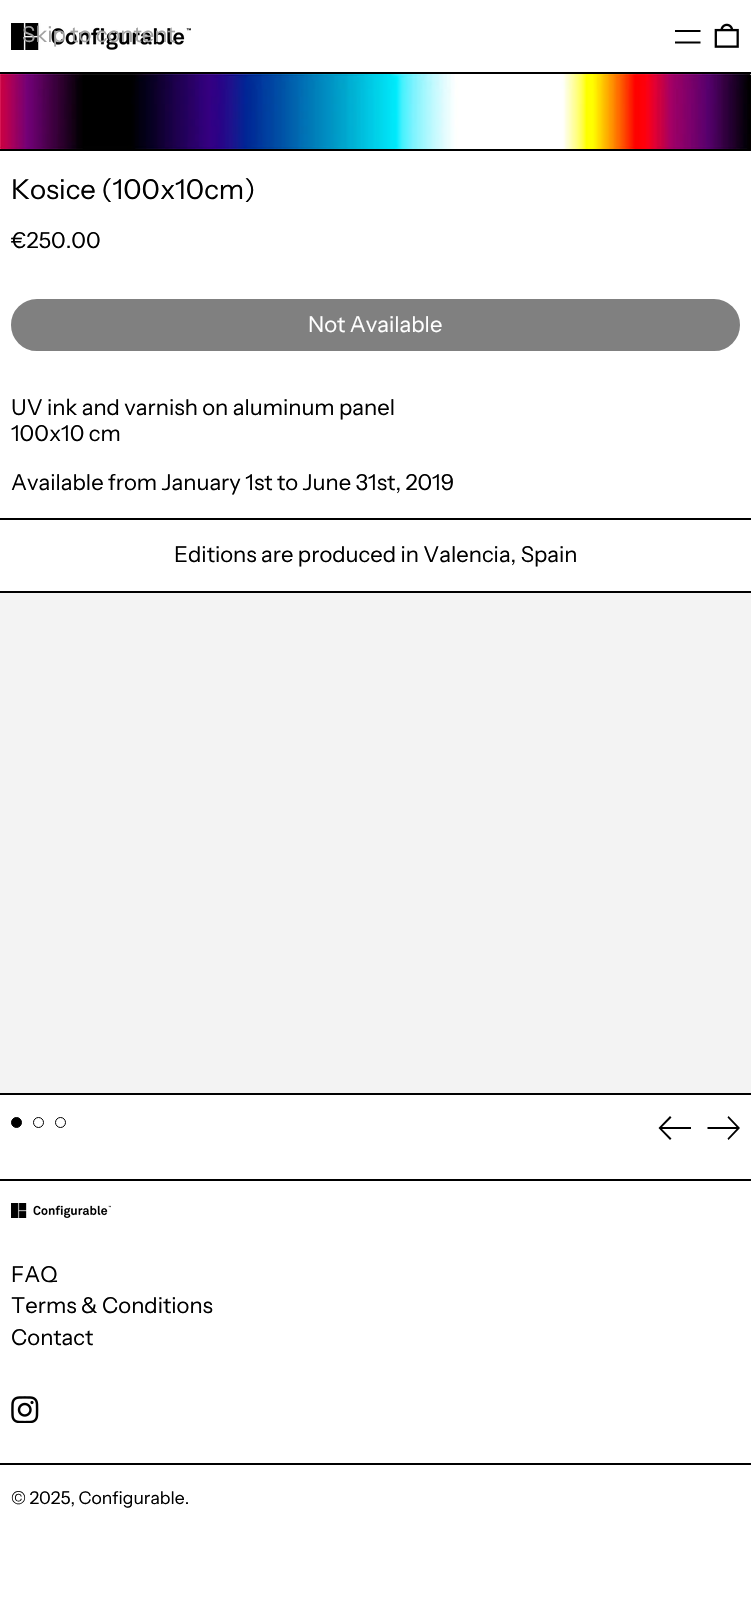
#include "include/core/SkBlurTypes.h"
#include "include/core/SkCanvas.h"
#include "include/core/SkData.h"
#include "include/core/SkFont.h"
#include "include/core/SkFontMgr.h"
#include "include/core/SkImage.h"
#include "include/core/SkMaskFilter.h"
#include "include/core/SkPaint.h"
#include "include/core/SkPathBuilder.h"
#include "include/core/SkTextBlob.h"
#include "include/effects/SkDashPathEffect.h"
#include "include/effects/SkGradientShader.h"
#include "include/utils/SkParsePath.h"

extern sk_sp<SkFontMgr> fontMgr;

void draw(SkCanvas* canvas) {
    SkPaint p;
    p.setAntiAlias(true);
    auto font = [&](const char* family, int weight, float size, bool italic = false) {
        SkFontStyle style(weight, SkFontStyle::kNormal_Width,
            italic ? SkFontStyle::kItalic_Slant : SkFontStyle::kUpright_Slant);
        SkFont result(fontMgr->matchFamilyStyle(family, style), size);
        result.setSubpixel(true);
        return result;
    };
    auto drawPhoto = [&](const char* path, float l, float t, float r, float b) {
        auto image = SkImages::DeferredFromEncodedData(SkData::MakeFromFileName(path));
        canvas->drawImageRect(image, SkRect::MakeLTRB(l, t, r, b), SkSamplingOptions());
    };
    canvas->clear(0xFFFFFFFF);
    drawPhoto("media/1.png", 11, 23, 191, 50);
    auto font1 = font("Instrument Sans", 400, 22);
    p.setColor(0xFFA2A2A2);
    canvas->drawString("Skip to content", 22, 42, font1, p);
    p.setColor(0xFF000000);
    canvas->drawPath(SkPathBuilder(SkPathFillType::kEvenOdd).moveTo(700.5f, 41.5f).lineTo(700.5f, 43.5f).lineTo(675, 43.5f).lineTo(675, 41.5f).close().moveTo(700.5f, 30).lineTo(700.5f, 32).lineTo(675, 32).lineTo(675, 30).close().detach(), p);
    drawPhoto("media/2.png", 714, 23, 739, 48);
    canvas->drawRect(SkRect::MakeLTRB(0, 72, 751, 74), p);
    canvas->drawRect(SkRect::MakeLTRB(0, 149, 751, 151), p);
    drawPhoto("media/3.png", 0, 74, 751, 149);
    auto font2 = font("Instrument Sans", 400, 27.5f);
    canvas->drawString("Kosice (100x10cm)", 11, 199, font2, p);
    canvas->drawString("€250.00", 11, 248, font1, p);
    p.setColor(0xFF808080);
    canvas->drawRoundRect(SkRect::MakeLTRB(12, 300, 739, 350), 25, 25, p);
    p.setStyle(SkPaint::kStroke_Style);
    p.setStrokeWidth(2);
    canvas->drawRoundRect(SkRect::MakeLTRB(12, 300, 739, 350), 25, 25, p);
    p.setStyle(SkPaint::kFill_Style);
    p.setColor(0xFFFFFFFF);
    canvas->drawString("Not Available", 308, 332, font1, p);
    p.setColor(0xFF000000);
    {
        const struct { const char* s; float x, y; } items[] = {
            {"UV ink and varnish on aluminum panel", 11, 415},
            {"100x10 cm", 11, 441},
            {"Available from January 1st to June 31st, 2019", 11, 490},
        };
        for (auto [s, x, y] : items) {
            canvas->drawString(s, x, y, font1, p);
        }
    }
    canvas->drawRect(SkRect::MakeLTRB(0, 518, 751, 520), p);
    canvas->drawString("Editions are produced in Valencia, Spain", 174, 562, font1, p);
    {
        const struct { float l, t, r, b; SkColor color; } items[] = {
            {0, 1093, 751, 1095, 0xFF000000},
            {0, 591, 751, 593, 0xFF000000},
            {0, 593, 751, 1093, 0xFFF3F3F3},
        };
        for (auto [l, t, r, b, color] : items) {
            p.setColor(color);
            canvas->drawRect(SkRect::MakeLTRB(l, t, r, b), p);
        }
    }
    p.setColor(0xFF000000);
    canvas->drawCircle(16.5f, 1122.5f, 5, p);
    p.setStyle(SkPaint::kStroke_Style);
    p.setStrokeWidth(1);
    canvas->drawCircle(16.5f, 1122.5f, 5, p);
    canvas->drawCircle(38.5f, 1122.5f, 5, p);
    canvas->drawCircle(60.5f, 1122.5f, 5, p);
    p.setStyle(SkPaint::kFill_Style);
    canvas->drawPath(SkPathBuilder().moveTo(670, 1116).lineTo(658.5f, 1128).lineTo(670, 1140).lineTo(671.5f, 1138.5f).lineTo(662, 1129).lineTo(691, 1129).lineTo(691, 1127).lineTo(662, 1127).lineTo(671.5f, 1117.5f).close().detach(), p);
    canvas->drawPath(SkPathBuilder().moveTo(728.5f, 1116).lineTo(740, 1128).lineTo(728.5f, 1140).lineTo(727.5f, 1138.5f).lineTo(736.5f, 1129).lineTo(707.5f, 1129).lineTo(707.5f, 1127).lineTo(736.5f, 1127).lineTo(727.5f, 1117.5f).close().detach(), p);
    canvas->drawRect(SkRect::MakeLTRB(0, 1179, 751, 1181), p);
    drawPhoto("media/4.png", 11, 1203, 111, 1218);
    {
        const struct { const char* s; float x, y; } items[] = {
            {"FAQ", 11, 1282},
            {"Terms & Conditions", 11, 1313},
            {"Contact", 11, 1345},
        };
        for (auto [s, x, y] : items) {
            canvas->drawString(s, x, y, font1, p);
        }
    }
    drawPhoto("media/5.png", 11, 1396, 39, 1423);
    canvas->drawRect(SkRect::MakeLTRB(0, 1463, 751, 1465), p);
    auto font3 = font("Instrument Sans", 400, 17.6f);
    canvas->drawString("© 2025, Configurable.", 11, 1504, font3, p);
}
